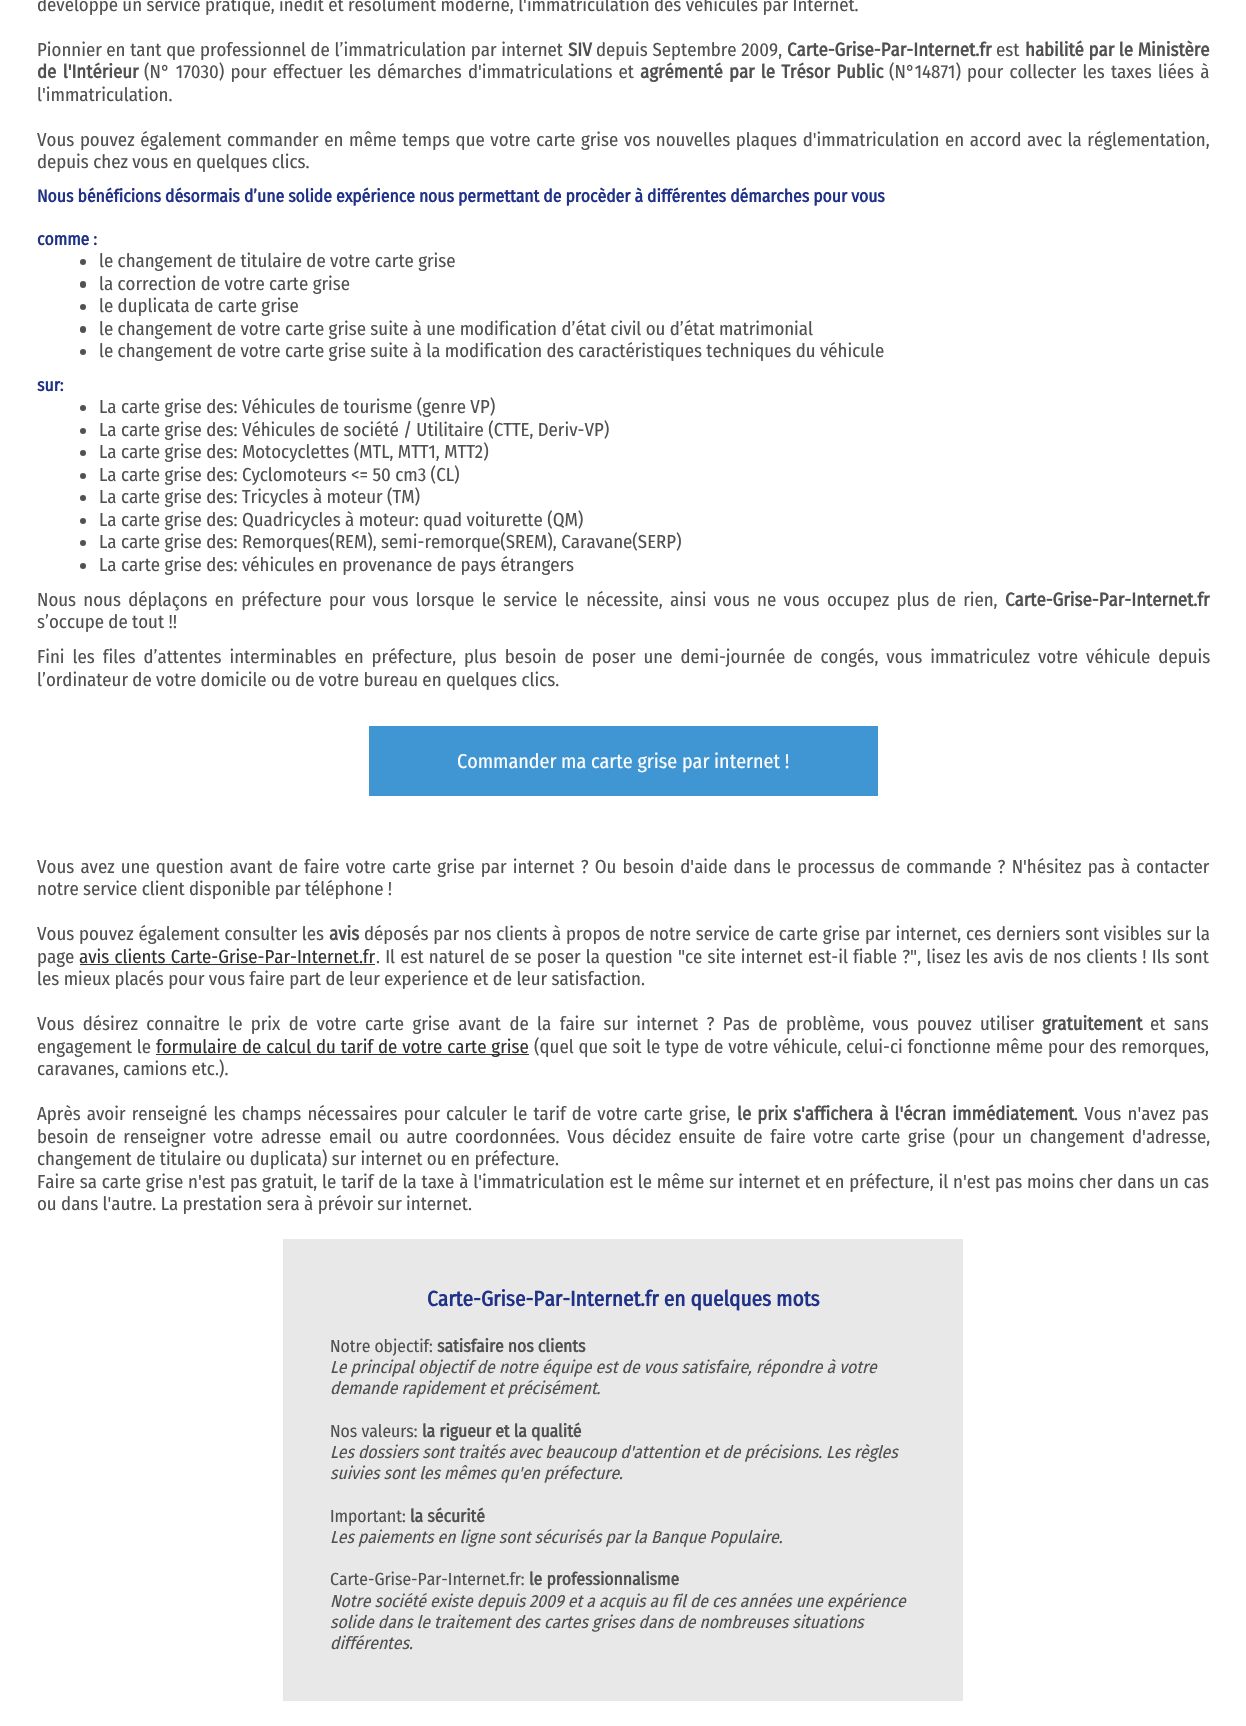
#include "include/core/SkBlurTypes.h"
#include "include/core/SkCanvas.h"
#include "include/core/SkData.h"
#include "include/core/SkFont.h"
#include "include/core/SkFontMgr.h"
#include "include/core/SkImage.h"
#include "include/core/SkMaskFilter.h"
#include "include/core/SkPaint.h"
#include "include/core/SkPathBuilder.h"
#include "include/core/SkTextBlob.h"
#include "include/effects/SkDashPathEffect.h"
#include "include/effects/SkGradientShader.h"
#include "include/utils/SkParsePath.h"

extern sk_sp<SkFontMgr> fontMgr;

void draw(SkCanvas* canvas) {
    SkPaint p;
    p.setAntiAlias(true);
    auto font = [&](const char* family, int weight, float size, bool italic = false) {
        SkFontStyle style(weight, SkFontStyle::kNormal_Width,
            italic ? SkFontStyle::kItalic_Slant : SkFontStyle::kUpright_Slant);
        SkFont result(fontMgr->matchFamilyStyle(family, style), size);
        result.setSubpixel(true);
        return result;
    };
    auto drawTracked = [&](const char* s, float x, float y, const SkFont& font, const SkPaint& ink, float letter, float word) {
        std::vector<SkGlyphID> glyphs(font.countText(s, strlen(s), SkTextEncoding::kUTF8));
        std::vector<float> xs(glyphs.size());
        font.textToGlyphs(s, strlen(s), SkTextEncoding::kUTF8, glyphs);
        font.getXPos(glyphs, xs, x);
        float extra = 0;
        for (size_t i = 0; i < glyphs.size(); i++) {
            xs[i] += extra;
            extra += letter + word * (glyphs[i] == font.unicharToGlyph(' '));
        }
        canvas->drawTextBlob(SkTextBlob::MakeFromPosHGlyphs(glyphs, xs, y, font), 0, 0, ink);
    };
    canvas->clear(0xFFFFFFFF);
    auto font1 = font("Fira Sans Condensed", 400, 18.75f);
    p.setColor(0xFF515152);
    canvas->drawString("développé un service pratique, inédit et résolument moderne, l'immatriculation des véhicules par Internet.", 37, 11, font1, p);
    drawTracked("Pionnier en tant que professionnel de l’immatriculation par internet", 37, 56, font1, p, 0, 0.25f);
    auto font2 = font("Fira Sans Condensed", 700, 18.75f);
    canvas->drawString("SIV", 568, 56, font2, p);
    drawTracked("depuis Septembre 2009,", 596, 56, font1, p, 0, 0.25f);
    canvas->drawString("Carte-Grise-Par-Internet.fr", 787, 56, font2, p);
    canvas->drawString("est", 996, 56, font1, p);
    drawTracked("habilité par le Ministère", 1025, 56, font2, p, 0, 0.25f);
    drawTracked("de l'Intérieur", 37, 78, font2, p, 0, 2);
    drawTracked("(N° 17030) pour effectuer les démarches d'immatriculations et", 144, 78, font1, p, 0, 1.75f);
    drawTracked("agrémenté par le Trésor Public", 640, 78, font2, p, 0, 1.75f);
    drawTracked("(N°14871) pour collecter les taxes liées à", 889, 78, font1, p, 0, 1.75f);
    canvas->drawString("l'immatriculation.", 37, 101, font1, p);
    drawTracked("Vous pouvez également commander en même temps que votre carte grise vos nouvelles plaques d'immatriculation en accord avec la réglementation,", 37, 146, font1, p, 0, 1.25f);
    canvas->drawString("depuis chez vous en quelques clics.", 37, 168, font1, p);
    auto font3 = font("Fira Sans Condensed", 700, 17.5f);
    p.setColor(0xFF203288);
    canvas->drawString("Nous bénéficions désormais d’une solide expérience nous permettant de procèder à différentes démarches pour vous", 37, 202, font3, p);
    canvas->drawString("comme :", 37, 245, font3, p);
    p.setColor(0xFF515152);
    canvas->drawCircle(83, 262, 3, p);
    canvas->drawString("le changement de titulaire de votre carte grise", 99, 267, font1, p);
    canvas->drawRoundRect(SkRect::MakeLTRB(80, 281, 86, 288), 3, 3, p);
    canvas->drawString("la correction de votre carte grise", 99, 290, font1, p);
    canvas->drawCircle(83, 307, 3, p);
    canvas->drawString("le duplicata de carte grise", 99, 312, font1, p);
    canvas->drawRoundRect(SkRect::MakeLTRB(80, 326, 86, 333), 3, 3, p);
    canvas->drawString("le changement de votre carte grise suite à une modification d’état civil ou d’état matrimonial", 99, 335, font1, p);
    canvas->drawCircle(83, 352, 3, p);
    canvas->drawString("le changement de votre carte grise suite à la modification des caractéristiques techniques du véhicule", 99, 357, font1, p);
    p.setColor(0xFF203288);
    canvas->drawString("sur:", 37, 391, font3, p);
    p.setColor(0xFF515152);
    canvas->drawCircle(83, 408, 3, p);
    canvas->drawString("La carte grise des: Véhicules de tourisme (genre VP)", 99, 413, font1, p);
    canvas->drawCircle(83, 431, 3, p);
    canvas->drawString("La carte grise des: Véhicules de société / Utilitaire (CTTE, Deriv-VP)", 99, 436, font1, p);
    canvas->drawCircle(83, 453, 3, p);
    canvas->drawString("La carte grise des: Motocyclettes (MTL, MTT1, MTT2)", 99, 458, font1, p);
    canvas->drawCircle(83, 476, 3, p);
    canvas->drawString("La carte grise des: Cyclomoteurs <= 50 cm3 (CL)", 99, 481, font1, p);
    canvas->drawCircle(83, 498, 3, p);
    canvas->drawString("La carte grise des: Tricycles à moteur (TM)", 99, 503, font1, p);
    canvas->drawCircle(83, 521, 3, p);
    canvas->drawString("La carte grise des: Quadricycles à moteur: quad voiturette (QM)", 99, 526, font1, p);
    canvas->drawCircle(83, 543, 3, p);
    canvas->drawString("La carte grise des: Remorques(REM), semi-remorque(SREM), Caravane(SERP)", 99, 548, font1, p);
    canvas->drawCircle(83, 566, 3, p);
    canvas->drawString("La carte grise des: véhicules en provenance de pays étrangers", 99, 571, font1, p);
    drawTracked("Nous nous déplaçons en préfecture pour vous lorsque le service le nécessite, ainsi vous ne vous occupez plus de rien,", 37, 606, font1, p, 0, 2.9f);
    canvas->drawString("Carte-Grise-Par-Internet.fr", 1005, 606, font2, p);
    canvas->drawString("s’occupe de tout !!", 37, 628, font1, p);
    drawTracked("Fini les files d’attentes interminables en préfecture, plus besoin de poser une demi-journée de congés, vous immatriculez votre véhicule depuis", 37, 663, font1, p, 0, 3.6f);
    canvas->drawString("l’ordinateur de votre domicile ou de votre bureau en quelques clics.", 37, 686, font1, p);
    p.setColor(0xFF4096D3);
    canvas->drawRect(SkRect::MakeLTRB(369, 726, 878, 796), p);
    auto font4 = font("Fira Sans Condensed", 400, 20);
    p.setColor(0xFFFFFFFF);
    canvas->drawString("Commander ma carte grise par internet !", 457, 768, font4, p);
    p.setColor(0xFF515152);
    drawTracked("Vous avez une question avant de faire votre carte grise par internet ? Ou besoin d'aide dans le processus de commande ? N'hésitez pas à contacter", 37, 873, font1, p, 0, 1.75f);
    canvas->drawString("notre service client disponible par téléphone !", 37, 895, font1, p);
    drawTracked("Vous pouvez également consulter les", 37, 940, font1, p, 0, 0.4f);
    canvas->drawString("avis", 329, 940, font2, p);
    drawTracked("déposés par nos clients à propos de notre service de carte grise par internet, ces derniers sont visibles sur la", 364, 940, font1, p, 0, 0.4f);
    canvas->drawString("page", 37, 963, font1, p);
    p.setColor(0xFF333333);
    drawTracked("avis clients Carte-Grise-Par-Internet.fr", 79, 963, font1, p, 0, 0.8f);
    canvas->drawRect(SkRect::MakeLTRB(80, 964, 375, 965), p);
    p.setColor(0xFF515152);
    drawTracked(". Il est naturel de se poser la question \"ce site internet est-il fiable ?\", lisez les avis de nos clients ! Ils sont", 376, 963, font1, p, 0, 0.8f);
    canvas->drawString("les mieux placés pour vous faire part de leur experience et de leur satisfaction.", 37, 985, font1, p);
    drawTracked("Vous désirez connaitre le prix de votre carte grise avant de la faire sur internet ? Pas de problème, vous pouvez utiliser", 37, 1030, font1, p, 0, 4);
    canvas->drawString("gratuitement", 1042, 1030, font2, p);
    drawTracked("et sans", 1150, 1030, font1, p, 0, 4);
    drawTracked("engagement le", 37, 1053, font1, p, 0, 0.5f);
    p.setColor(0xFF333333);
    canvas->drawRect(SkRect::MakeLTRB(156, 1054, 529, 1055), p);
    drawTracked("formulaire de calcul du tarif de votre carte grise", 156, 1053, font1, p, 0, 0.5f);
    p.setColor(0xFF515152);
    drawTracked("(quel que soit le type de votre véhicule, celui-ci fonctionne même pour des remorques,", 534, 1053, font1, p, 0, 0.5f);
    canvas->drawString("caravanes, camions etc.).", 37, 1075, font1, p);
    drawTracked("Après avoir renseigné les champs nécessaires pour calculer le tarif de votre carte grise,", 37, 1120, font1, p, 0, 1.75f);
    drawTracked("le prix s'affichera à l'écran immédiatement", 737, 1120, font2, p, 0, 1.75f);
    drawTracked(". Vous n'avez pas", 1074, 1120, font1, p, 0, 1.75f);
    drawTracked("besoin de renseigner votre adresse email ou autre coordonnées. Vous décidez ensuite de faire votre carte grise (pour un changement d'adresse,", 37, 1143, font1, p, 0, 3.25f);
    canvas->drawString("changement de titulaire ou duplicata) sur internet ou en préfecture.", 37, 1165, font1, p);
    drawTracked("Faire sa carte grise n'est pas gratuit, le tarif de la taxe à l'immatriculation est le même sur internet et en préfecture, il n'est pas moins cher dans un cas", 37, 1188, font1, p, 0, 0.45f);
    canvas->drawString("ou dans l'autre. La prestation sera à prévoir sur internet.", 37, 1210, font1, p);
    p.setColor(0xFFE8E8E8);
    canvas->drawRect(SkRect::MakeLTRB(283, 1239, 963, 1701), p);
    auto font5 = font("Fira Sans Condensed", 700, 21.25f);
    p.setColor(0xFF203288);
    canvas->drawString("Carte-Grise-Par-Internet.fr en quelques mots", 427, 1306, font5, p);
    auto font6 = font("Fira Sans Condensed", 400, 17.5f);
    p.setColor(0xFF515152);
    canvas->drawString("Notre objectif:", 330, 1352, font6, p);
    canvas->drawString("satisfaire nos clients", 437, 1352, font3, p);
    auto font7 = font("Fira Sans Condensed", 400, 17.5f, true);
    canvas->drawString("Le principal objectif de notre équipe est de vous satisfaire, répondre à votre", 330, 1373, font7, p);
    canvas->drawString("demande rapidement et précisément.", 330, 1394, font7, p);
    canvas->drawString("Nos valeurs:", 330, 1437, font6, p);
    canvas->drawString("la rigueur et la qualité", 422, 1437, font3, p);
    canvas->drawString("Les dossiers sont traités avec beaucoup d'attention et de précisions. Les règles", 330, 1458, font7, p);
    canvas->drawString("suivies sont les mêmes qu'en préfecture.", 330, 1479, font7, p);
    canvas->drawString("Important:", 330, 1522, font6, p);
    canvas->drawString("la sécurité", 410, 1522, font3, p);
    canvas->drawString("Les paiements en ligne sont sécurisés par la Banque Populaire.", 330, 1543, font7, p);
    canvas->drawString("Carte-Grise-Par-Internet.fr:", 330, 1585, font6, p);
    canvas->drawString("le professionnalisme", 529, 1585, font3, p);
    {
        const struct { const char* s; float x, y; } items[] = {
            {"Notre société existe depuis 2009 et a acquis au fil de ces années une expérience", 330, 1607},
            {"solide dans le traitement des cartes grises dans de nombreuses situations", 330, 1628},
            {"différentes.", 330, 1649},
        };
        for (auto [s, x, y] : items) {
            canvas->drawString(s, x, y, font7, p);
        }
    }
}
